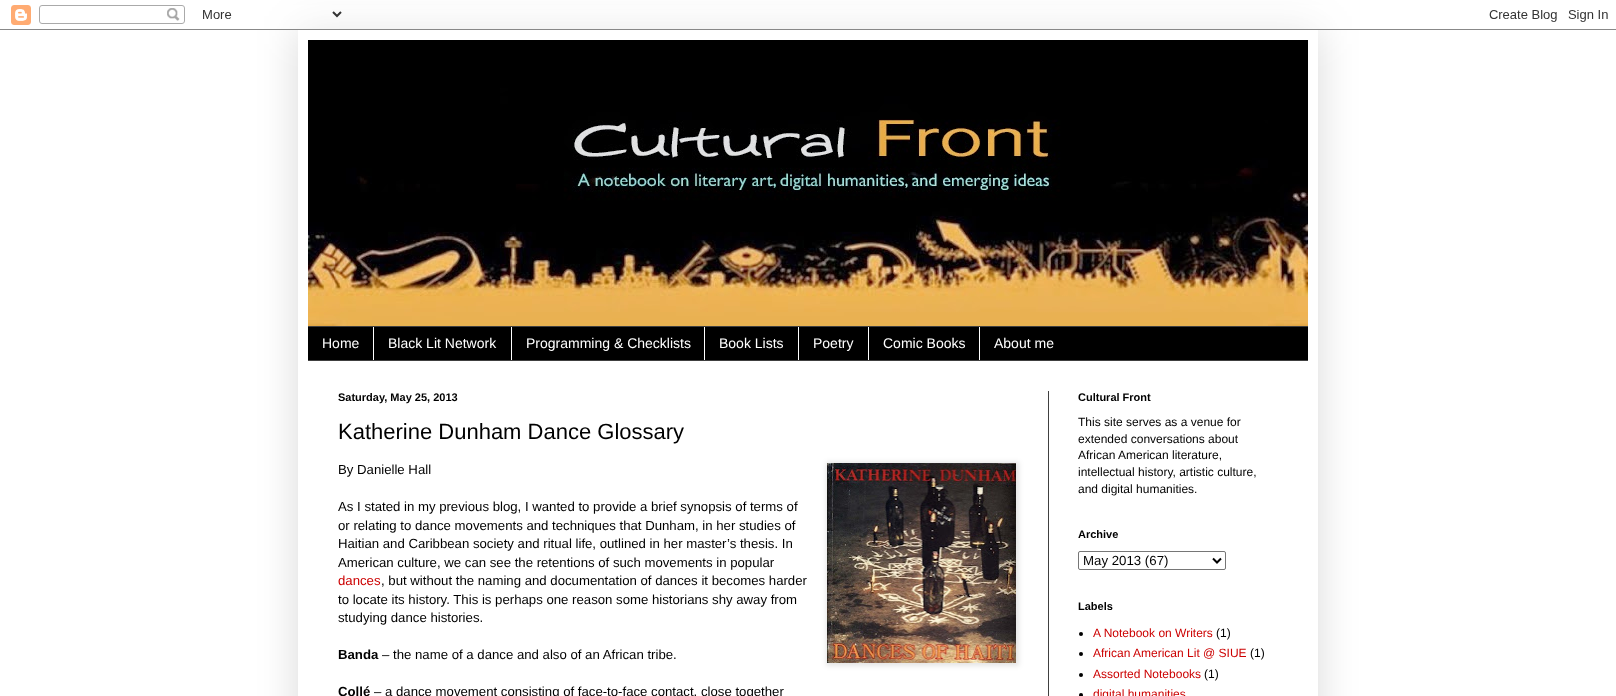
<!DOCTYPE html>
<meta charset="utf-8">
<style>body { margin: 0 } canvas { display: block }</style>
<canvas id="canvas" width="1616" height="696"></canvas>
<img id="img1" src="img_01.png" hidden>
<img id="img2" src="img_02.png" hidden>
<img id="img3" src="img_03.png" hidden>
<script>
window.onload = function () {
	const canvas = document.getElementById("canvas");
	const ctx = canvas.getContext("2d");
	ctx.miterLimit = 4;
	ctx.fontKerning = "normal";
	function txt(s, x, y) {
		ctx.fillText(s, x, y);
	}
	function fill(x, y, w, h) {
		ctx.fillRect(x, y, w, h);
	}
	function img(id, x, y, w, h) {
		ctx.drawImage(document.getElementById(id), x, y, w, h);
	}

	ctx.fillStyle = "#FFFFFF";
	fill(0, 0, 1616, 696);
	ctx.save();
	ctx.beginPath();
	ctx.moveTo(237, 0);
	ctx.lineTo(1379, 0);
	ctx.lineTo(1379, 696);
	ctx.lineTo(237, 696);
	ctx.closePath();
	ctx.moveTo(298, 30);
	ctx.lineTo(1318, 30);
	ctx.lineTo(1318, 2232);
	ctx.lineTo(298, 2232);
	ctx.closePath();
	ctx.clip("evenodd");
	ctx.fillStyle = "rgba(0, 0, 0, 0.15)";
	ctx.filter = "blur(20px)";
	ctx.beginPath();
	ctx.rect(298, 30, 1020, 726);
	ctx.fill();
	ctx.filter = "none";
	ctx.restore();
	img("img1", 0, 5, 1616, 25);
	img("img2", 308, 40, 1000, 286);
	ctx.fillStyle = "#000000";
	fill(308, 327, 1000, 33);
	ctx.fillStyle = "#404040";
	fill(308, 326, 1000, 1);
	fill(308, 360, 1000, 1);
	ctx.fillStyle = "#FFFFFF";
	fill(373, 327, 1, 33);
	fill(511, 327, 1, 33);
	fill(704, 327, 1, 33);
	fill(798, 327, 1, 33);
	fill(868, 327, 1, 33);
	fill(979, 327, 1, 33);
	ctx.fillStyle = "#404040";
	fill(1048, 391, 1, 305);
	ctx.fillStyle = "rgba(0, 0, 0, 0.1)";
	ctx.filter = "blur(2.5px)";
	ctx.beginPath();
	ctx.rect(826, 462, 193, 204);
	ctx.fill();
	ctx.filter = "none";
	img("img3", 827, 463, 189, 200);
	ctx.beginPath();
	ctx.roundRect(1078.5, 551.5, 147, 18, 1.5);
	ctx.strokeStyle = "#767676";
	ctx.stroke();
	ctx.beginPath();
	ctx.moveTo(1213, 558.5);
	ctx.lineTo(1217, 562.5);
	ctx.lineTo(1221, 558.5);
	ctx.strokeStyle = "#000000";
	ctx.lineWidth = 2;
	ctx.stroke();
	ctx.fillStyle = "#000000";
	ctx.beginPath();
	ctx.arc(1081, 634, 2, 0, Math.PI * 2);
	ctx.fill();
	ctx.beginPath();
	ctx.arc(1081, 654, 2, 0, Math.PI * 2);
	ctx.fill();
	ctx.beginPath();
	ctx.arc(1081, 675, 2, 0, Math.PI * 2);
	ctx.fill();
	ctx.beginPath();
	ctx.arc(1081, 695, 2, 0, Math.PI * 2);
	ctx.fill();
	ctx.font = "14px Liberation Sans";
	ctx.fillStyle = "#FFFFFF";
	txt("Home", 322, 348);
	txt("Black Lit Network", 388, 348);
	txt("Programming & Checklists", 526, 348);
	txt("Book Lists", 719, 348);
	txt("Poetry", 813, 348);
	txt("Comic Books", 883, 348);
	txt("About me", 994, 348);
	ctx.font = "bold 11px Liberation Sans";
	ctx.fillStyle = "#000000";
	txt("Saturday, May 25, 2013", 338, 401);
	ctx.font = "22px Liberation Sans";
	txt("Katherine Dunham Dance Glossary", 338, 439);
	ctx.font = "13.2px Liberation Sans";
	txt("By Danielle Hall", 338, 474);
	txt("As I stated in my previous blog, I wanted to provide a brief synopsis of terms of", 338, 511);
	txt("or relating to dance movements and techniques that Dunham, in her studies of", 338, 530);
	txt("Haitian and Caribbean society and ritual life, outlined in her master’s thesis. In", 338, 548);
	txt("American culture, we can see the retentions of such movements in popular", 338, 567);
	ctx.fillStyle = "#CC0000";
	txt("dances", 338, 585);
	ctx.fillStyle = "#000000";
	txt(", but without the naming and documentation of dances it becomes harder", 381, 585);
	txt("to locate its history. This is perhaps one reason some historians shy away from", 338, 604);
	txt("studying dance histories.", 338, 622);
	ctx.font = "bold 13.2px Liberation Sans";
	txt("Banda", 338, 659);
	ctx.font = "13.2px Liberation Sans";
	txt("– the name of a dance and also of an African tribe.", 382, 659);
	ctx.font = "bold 13.2px Liberation Sans";
	txt("Collé", 338, 696);
	ctx.font = "13.2px Liberation Sans";
	txt("– a dance movement consisting of face-to-face contact, close together", 374, 696);
	ctx.font = "bold 11px Liberation Sans";
	txt("Cultural Front", 1078, 401);
	ctx.font = "12px Liberation Sans";
	txt("This site serves as a venue for", 1078, 426);
	txt("extended conversations about", 1078, 443);
	txt("African", 1078, 459);
	txt("American literature,", 1118, 459);
	txt("intellectual history, artistic culture,", 1078, 476);
	txt("and digital humanities.", 1078, 493);
	ctx.font = "bold 11px Liberation Sans";
	txt("Archive", 1078, 538);
	ctx.font = "13.25px Liberation Sans";
	txt("May 2013 (67)", 1083, 565);
	ctx.font = "bold 11px Liberation Sans";
	txt("Labels", 1078, 610);
	ctx.font = "12px Liberation Sans";
	ctx.fillStyle = "#CC0000";
	txt("A Notebook on Writers", 1093, 637);
	ctx.fillStyle = "#000000";
	txt("(1)", 1216, 637);
	ctx.fillStyle = "#CC0000";
	txt("African American Lit @ SIUE", 1093, 657);
	ctx.fillStyle = "#000000";
	txt("(1)", 1250, 657);
	ctx.fillStyle = "#CC0000";
	txt("Assorted Notebooks", 1093, 678);
	ctx.fillStyle = "#000000";
	txt("(1)", 1204, 678);
	ctx.fillStyle = "#CC0000";
	txt("digital humanities", 1093, 698);
};
</script>
